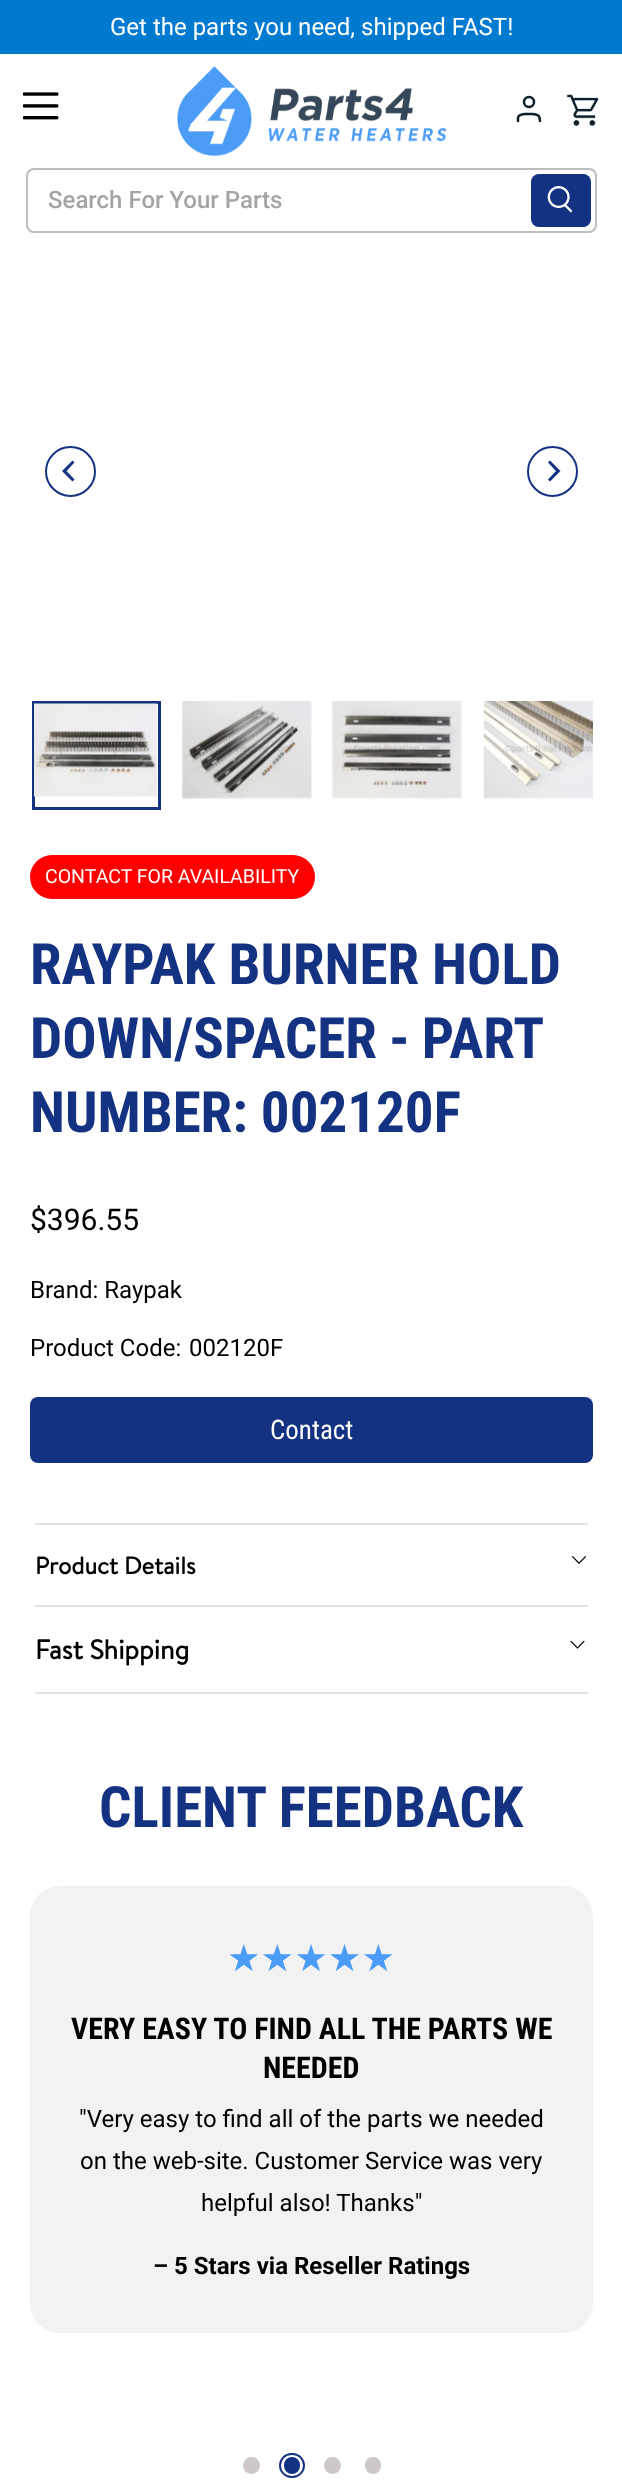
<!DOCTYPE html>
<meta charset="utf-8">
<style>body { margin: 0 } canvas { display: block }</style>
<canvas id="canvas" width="622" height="2482"></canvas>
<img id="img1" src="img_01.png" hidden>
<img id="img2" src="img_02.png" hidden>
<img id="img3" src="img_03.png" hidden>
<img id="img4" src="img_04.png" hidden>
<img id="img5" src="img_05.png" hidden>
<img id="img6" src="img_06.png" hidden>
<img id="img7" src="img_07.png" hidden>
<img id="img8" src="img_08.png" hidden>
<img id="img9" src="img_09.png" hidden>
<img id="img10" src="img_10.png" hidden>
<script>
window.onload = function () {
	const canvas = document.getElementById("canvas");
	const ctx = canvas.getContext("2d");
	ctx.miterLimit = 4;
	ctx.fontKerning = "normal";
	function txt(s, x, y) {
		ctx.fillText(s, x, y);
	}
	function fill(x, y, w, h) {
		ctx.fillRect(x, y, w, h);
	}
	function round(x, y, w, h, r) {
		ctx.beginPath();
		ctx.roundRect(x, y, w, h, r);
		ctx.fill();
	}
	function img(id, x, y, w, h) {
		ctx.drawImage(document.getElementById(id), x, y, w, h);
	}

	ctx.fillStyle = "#FFFFFF";
	fill(0, 0, 622, 2482);
	ctx.fillStyle = "#007ACE";
	fill(0, 0, 622, 54);
	img("img1", 23, 92, 36, 28);
	img("img2", 177, 66, 270, 90);
	ctx.beginPath();
	ctx.moveTo(540, 121);
	ctx.lineTo(539.5, 117.5);
	ctx.bezierCurveTo(538.5, 113, 532.5, 114, 529, 114);
	ctx.bezierCurveTo(525.5, 114, 519, 113, 518, 117.5);
	ctx.lineTo(518, 121);
	ctx.strokeStyle = "#0D212C";
	ctx.lineWidth = 2.5;
	ctx.lineCap = "round";
	ctx.lineJoin = "round";
	ctx.stroke();
	ctx.beginPath();
	ctx.arc(529, 102, 5, 0, Math.PI * 2);
	ctx.stroke();
	img("img3", 566, 94, 33, 33);
	ctx.beginPath();
	ctx.roundRect(27, 169, 569, 63, 7);
	ctx.strokeStyle = "#BEBEBE";
	ctx.lineWidth = 2;
	ctx.lineJoin = "miter";
	ctx.stroke();
	ctx.fillStyle = "#143282";
	round(533, 174, 58, 53, 8);
	round(531, 174, 59, 53, 8);
	img("img4", 547, 186, 26, 27);
	ctx.beginPath();
	ctx.arc(70.5, 471.5, 24.5, 0, Math.PI * 2);
	ctx.strokeStyle = "#143282";
	ctx.stroke();
	ctx.beginPath();
	ctx.moveTo(62, 471);
	ctx.lineTo(72.5, 481.5);
	ctx.lineTo(74.5, 479.5);
	ctx.lineTo(66.5, 471);
	ctx.lineTo(74.5, 462.5);
	ctx.lineTo(72.5, 460.5);
	ctx.closePath();
	ctx.fill();
	ctx.beginPath();
	ctx.arc(552.5, 471.5, 24.5, 0, Math.PI * 2);
	ctx.stroke();
	ctx.beginPath();
	ctx.moveTo(560.5, 471);
	ctx.lineTo(550, 460.5);
	ctx.lineTo(548, 462.5);
	ctx.lineTo(556, 471);
	ctx.lineTo(548, 479.5);
	ctx.lineTo(550, 481.5);
	ctx.closePath();
	ctx.fill();
	ctx.lineWidth = 3;
	ctx.strokeRect(33.5, 702.5, 126, 106);
	img("img5", 34, 703, 123, 94);
	img("img6", 181, 701, 131, 98);
	img("img7", 332, 701, 130, 98);
	img("img8", 483, 701, 110, 98);
	ctx.fillStyle = "#FF0001";
	round(30, 855, 285, 44, 22);
	ctx.fillStyle = "#143282";
	round(30, 1397, 563, 66, 8);
	ctx.fillStyle = "#E3E3E3";
	fill(35, 1523, 553, 2);
	fill(35, 1605, 553, 2);
	img("img9", 572, 1556, 15, 8);
	fill(35, 1692, 553, 2);
	img("img10", 570, 1640, 15, 9);
	ctx.fillStyle = "#F2F2F2";
	round(30, 1886, 563, 447, 30);
	ctx.fillStyle = "#CDC7C7";
	ctx.beginPath();
	ctx.arc(251.5, 2465.5, 8.5, 0, Math.PI * 2);
	ctx.fill();
	ctx.fillStyle = "#143282";
	round(284, 2457, 16, 17, 8);
	ctx.beginPath();
	ctx.roundRect(280, 2454, 24, 23, 11.5);
	ctx.lineWidth = 2;
	ctx.stroke();
	ctx.fillStyle = "#CDC7C7";
	ctx.beginPath();
	ctx.arc(332.5, 2465.5, 8.5, 0, Math.PI * 2);
	ctx.fill();
	round(365, 2457, 16, 17, 8);
	ctx.font = "24px Roboto";
	ctx.fillStyle = "#FFFFFF";
	txt("Get the parts you need, shipped FAST!", 110, 35);
	ctx.font = "500 24px Roboto";
	ctx.fillStyle = "#A4A4A4";
	txt("Search For Your Parts", 48, 208);
	ctx.font = "19.5px Roboto";
	ctx.fillStyle = "#FFFFFF";
	txt("CONTACT FOR AVAILABILITY", 45, 883);
	ctx.font = "bold 57px Roboto Condensed";
	ctx.fillStyle = "#143282";
	txt("RAYPAK BURNER HOLD", 30, 984);
	ctx.wordSpacing = "-1px";
	txt("DOWN/SPACER - PART", 30, 1058);
	ctx.wordSpacing = "0px";
	txt("NUMBER: 002120F", 30, 1132);
	ctx.font = "30px Roboto";
	ctx.fillStyle = "#000000";
	txt("$396.55", 30, 1230);
	ctx.font = "24px Roboto";
	txt("Brand: Raypak", 30, 1298);
	txt("Product Code:", 30, 1356);
	txt("002120F", 189, 1356);
	ctx.font = "27px Roboto Condensed";
	ctx.fillStyle = "#FFFFFF";
	txt("Contact", 270, 1439);
	ctx.font = "bold 24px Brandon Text";
	ctx.fillStyle = "#000000";
	txt("Product Details", 35, 1574);
	ctx.font = "bold 27px Brandon Text";
	txt("Fast Shipping", 35, 1659);
	ctx.font = "bold 57px Roboto Condensed";
	ctx.fillStyle = "#143282";
	txt("CLIENT FEEDBACK", 99, 1827);
	ctx.font = "37.5px DejaVu Sans";
	ctx.fillStyle = "#4B9CF7";
	txt("★★★★★", 227, 1971);
	ctx.font = "bold 30px Roboto Condensed";
	ctx.fillStyle = "#000000";
	txt("VERY EASY TO FIND ALL THE PARTS WE", 71, 2039);
	txt("NEEDED", 263, 2078);
	ctx.font = "24px Roboto";
	txt("\"Very easy to find all of the parts we needed", 79, 2127);
	txt("on the web-site. Customer Service was very", 80, 2169);
	txt("helpful also! Thanks\"", 201, 2211);
	ctx.font = "bold 24px Roboto";
	txt("– 5 Stars via Reseller Ratings", 153, 2274);
};
</script>
